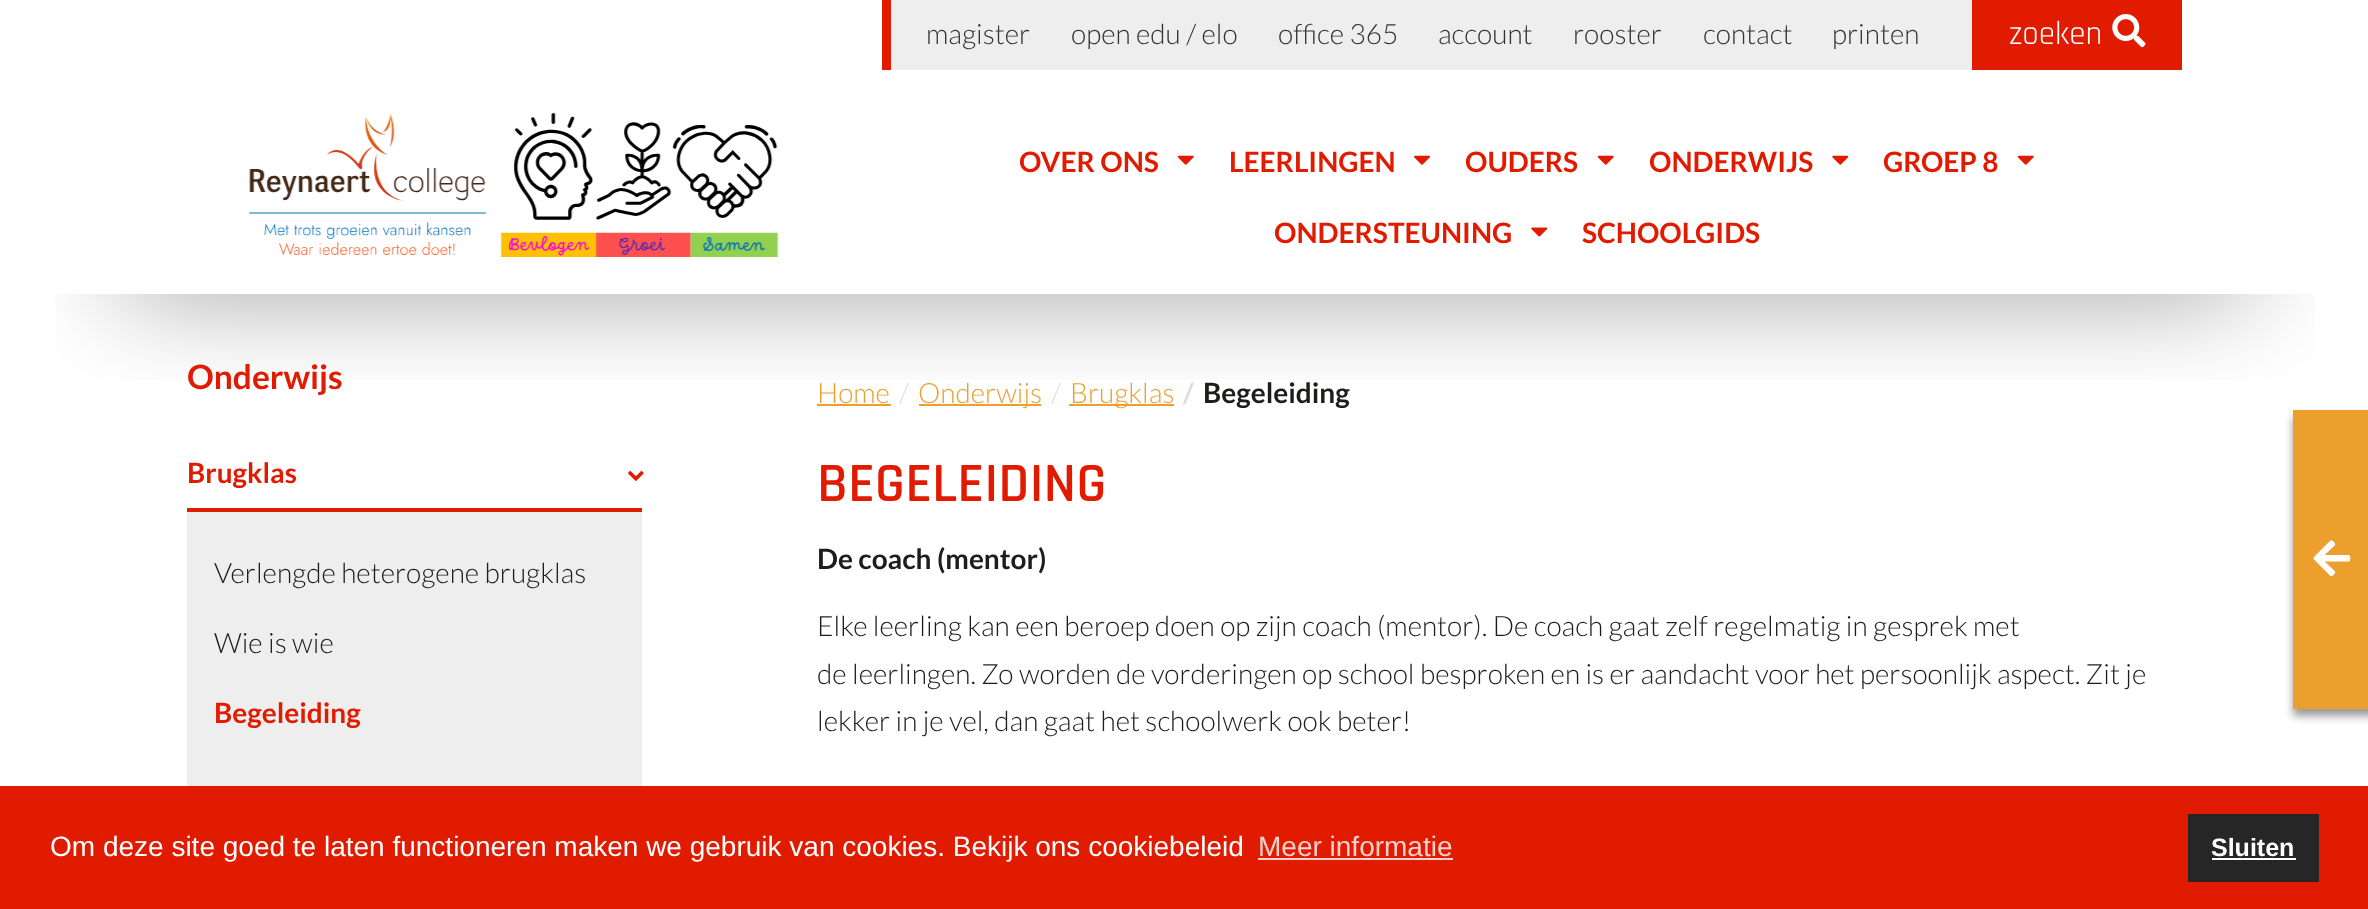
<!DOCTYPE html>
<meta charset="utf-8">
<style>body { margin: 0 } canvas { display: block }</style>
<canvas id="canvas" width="2368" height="909"></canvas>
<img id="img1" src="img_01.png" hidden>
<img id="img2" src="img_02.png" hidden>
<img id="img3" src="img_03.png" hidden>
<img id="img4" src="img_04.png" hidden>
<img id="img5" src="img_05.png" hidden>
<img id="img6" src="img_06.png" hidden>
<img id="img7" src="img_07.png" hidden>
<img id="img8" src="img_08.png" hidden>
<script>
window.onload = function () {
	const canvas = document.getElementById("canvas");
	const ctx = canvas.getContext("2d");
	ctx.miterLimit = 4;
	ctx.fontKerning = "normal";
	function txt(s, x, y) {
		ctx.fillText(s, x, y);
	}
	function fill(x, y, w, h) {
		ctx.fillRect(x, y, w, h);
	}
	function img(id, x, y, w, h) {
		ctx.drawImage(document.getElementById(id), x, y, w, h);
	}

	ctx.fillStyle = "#FFFFFF";
	fill(0, 0, 2368, 909);
	ctx.fillStyle = "#ED9F2D";
	fill(817, 404, 74, 2);
	fill(919, 404, 122, 2);
	fill(1069, 404, 105, 2);
	ctx.fillStyle = "rgba(0, 0, 0, 0.4)";
	ctx.filter = "blur(4.5px)";
	ctx.beginPath();
	ctx.rect(2293, 417, 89, 299);
	ctx.fill();
	ctx.filter = "none";
	ctx.fillStyle = "#ED9F2D";
	fill(2293, 410, 75, 299);
	ctx.save();
	ctx.beginPath();
	ctx.rect(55, 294, 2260, 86);
	ctx.clip();
	ctx.fillStyle = "rgba(0, 0, 0, 0.69)";
	ctx.filter = "blur(57px)";
	ctx.beginPath();
	ctx.rect(123, 226, 2124, 49);
	ctx.fill();
	ctx.filter = "none";
	ctx.restore();
	ctx.fillStyle = "#EEEEEE";
	fill(891, 0, 1081, 70);
	ctx.fillStyle = "#E01B00";
	fill(882, 0, 9, 70);
	fill(1972, 0, 210, 70);
	img("img1", 2112, 14, 34, 34);
	img("img2", 249, 113, 530, 144);
	img("img3", 1177, 155, 17, 10);
	img("img4", 1414, 155, 16, 10);
	img("img3", 1597, 155, 17, 10);
	img("img5", 1832, 155, 17, 10);
	img("img3", 2017, 155, 17, 10);
	img("img6", 1531, 227, 17, 10);
	img("img7", 628, 470, 16, 11);
	ctx.fillStyle = "#EEEEEE";
	fill(187, 512, 455, 274);
	ctx.fillStyle = "#E01B00";
	fill(187, 508, 455, 4);
	img("img8", 2313, 540, 38, 37);
	fill(0, 786, 2368, 123);
	ctx.fillStyle = "#F9D1CC";
	fill(1258, 858, 195, 2);
	ctx.fillStyle = "#262626";
	fill(2188, 814, 131, 68);
	ctx.fillStyle = "#FFFFFF";
	fill(2212, 858, 84, 2);
	ctx.font = "300 28px Lato";
	ctx.fillStyle = "#333333";
	txt("magister", 926, 44);
	txt("open edu / elo", 1071, 44);
	txt("office 365", 1278, 44);
	txt("account", 1438, 44);
	txt("rooster", 1573, 44);
	txt("contact", 1703, 44);
	txt("printen", 1832, 44);
	ctx.font = "33px Rajdhani";
	ctx.fillStyle = "#FFFFFF";
	txt("zoeken", 2009, 44);
	ctx.font = "bold 28px Lato";
	ctx.fillStyle = "#E01B00";
	txt("OVER ONS", 1019, 172);
	txt("LEERLINGEN", 1229, 172);
	txt("OUDERS", 1465, 172);
	txt("ONDERWIJS", 1649, 172);
	txt("GROEP 8", 1883, 172);
	txt("ONDERSTEUNING", 1274, 243);
	txt("SCHOOLGIDS", 1582, 243);
	ctx.font = "bold 33.5px Lato";
	txt("Onderwijs", 187, 389);
	ctx.font = "bold 28px Lato";
	txt("Brugklas", 187, 483);
	ctx.font = "300 28px Lato";
	ctx.fillStyle = "#1D1D1B";
	txt("Verlengde heterogene brugklas", 214, 583);
	txt("Wie is wie", 214, 653);
	ctx.font = "bold 28px Lato";
	ctx.fillStyle = "#E01B00";
	txt("Begeleiding", 214, 723);
	ctx.font = "300 28px Lato";
	ctx.fillStyle = "#ED9F2D";
	txt("Home", 817, 403);
	ctx.fillStyle = "#DDDDDD";
	txt("/", 899, 403);
	ctx.fillStyle = "#ED9F2D";
	txt("Onderwijs", 918, 403);
	ctx.fillStyle = "#DDDDDD";
	txt("/", 1051, 403);
	ctx.fillStyle = "#ED9F2D";
	txt("Brugklas", 1070, 403);
	ctx.font = "bold 28px Lato";
	ctx.fillStyle = "#DDDDDD";
	txt("/", 1183, 403);
	ctx.fillStyle = "#1D1D1B";
	txt("Begeleiding", 1203, 403);
	ctx.font = "600 56px Rajdhani";
	ctx.fillStyle = "#E01B00";
	txt("BEGELEIDING", 817, 501);
	ctx.font = "bold 28px Lato";
	ctx.fillStyle = "#1D1D1B";
	txt("De coach (mentor)", 817, 569);
	ctx.font = "300 28px Lato";
	txt("Elke leerling kan een beroep doen op zijn coach (mentor). De coach gaat zelf regelmatig in gesprek met", 817, 636);
	txt("de leerlingen. Zo worden de vorderingen op school besproken en is er aandacht voor het persoonlijk aspect. Zit je", 817, 684);
	txt("lekker in je vel, dan gaat het schoolwerk ook beter!", 817, 731);
	ctx.font = "28px Liberation Sans";
	ctx.fillStyle = "#FFFFFF";
	txt("Om deze site goed te laten functioneren maken we gebruik van cookies. Bekijk ons cookiebeleid", 50, 856);
	ctx.fillStyle = "#F9D1CC";
	txt("Meer informatie", 1258, 856);
	ctx.font = "bold 25px Liberation Sans";
	ctx.fillStyle = "#FFFFFF";
	txt("Sluiten", 2211, 856);
};
</script>
